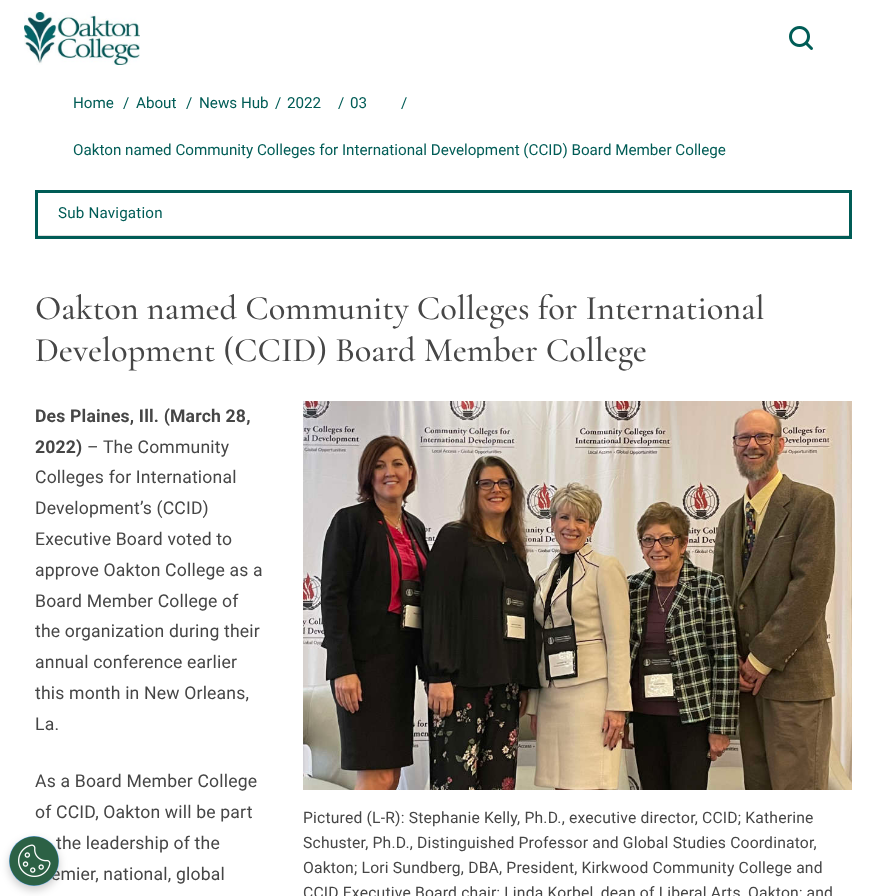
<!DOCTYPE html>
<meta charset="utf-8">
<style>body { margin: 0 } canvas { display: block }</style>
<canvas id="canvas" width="887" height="896"></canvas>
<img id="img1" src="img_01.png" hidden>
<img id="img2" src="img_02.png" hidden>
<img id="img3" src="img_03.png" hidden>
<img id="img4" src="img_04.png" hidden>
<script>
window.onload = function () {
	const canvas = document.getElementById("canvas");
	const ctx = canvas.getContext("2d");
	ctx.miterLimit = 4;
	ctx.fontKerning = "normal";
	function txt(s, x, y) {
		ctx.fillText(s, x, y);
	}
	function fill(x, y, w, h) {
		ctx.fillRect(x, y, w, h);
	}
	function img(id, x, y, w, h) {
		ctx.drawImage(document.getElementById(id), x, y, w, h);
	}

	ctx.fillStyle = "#FFFFFF";
	fill(0, 0, 887, 896);
	img("img1", 24, 12, 116, 53);
	img("img2", 789, 26, 24, 24);
	ctx.strokeStyle = "#005C56";
	ctx.lineWidth = 3;
	ctx.strokeRect(36.5, 191.5, 814, 46);
	ctx.fillStyle = "#DDDDDD";
	fill(38, 235, 811, 1);
	img("img3", 303, 401, 549, 389);
	ctx.fillStyle = "rgba(0, 0, 0, 0.2)";
	ctx.filter = "blur(4px)";
	ctx.beginPath();
	ctx.roundRect(9, 840, 50, 50, 25);
	ctx.fill();
	ctx.filter = "none";
	ctx.font = "15.2px Roboto";
	ctx.fillStyle = "#005C56";
	txt("Home", 73, 108);
	txt("/", 123, 108);
	txt("About", 136, 108);
	txt("/", 186, 108);
	txt("News Hub", 199, 108);
	txt("/", 275, 108);
	txt("2022", 287, 108);
	txt("/", 338, 108);
	txt("03", 350, 108);
	txt("/", 401, 108);
	txt("Oakton named Community Colleges for International Development (CCID) Board Member College", 73, 155);
	ctx.letterSpacing = "0.18px";
	txt("Sub Navigation", 58, 218);
	ctx.letterSpacing = "0px";
	ctx.font = "500 34.4px Cormorant Garamond";
	ctx.fillStyle = "#464646";
	txt("Oakton named Community Colleges for International", 35, 319);
	txt("Development (CCID) Board Member College", 35, 361);
	ctx.letterSpacing = "0.18px";
	ctx.font = "bold 17.6px Roboto";
	txt("Des Plaines, Ill. (March 28,", 35, 422);
	txt("2022)", 35, 453);
	ctx.font = "17.6px Roboto";
	txt("– The Community", 87, 453);
	txt("Colleges for International", 35, 483);
	txt("Development’s (CCID)", 35, 514);
	txt("Executive Board voted to", 35, 545);
	txt("approve Oakton College as a", 35, 576);
	txt("Board Member College of", 35, 607);
	txt("the organization during their", 35, 637);
	txt("annual conference earlier", 35, 668);
	txt("this month in New Orleans,", 35, 699);
	txt("La.", 35, 730);
	txt("As a Board Member College", 35, 787);
	txt("of CCID, Oakton will be part", 35, 818);
	txt("the leadership of the", 56, 849);
	txt("emier, national, global", 51, 880);
	ctx.font = "15.7px Roboto";
	txt("Pictured (L-R): Stephanie Kelly, Ph.D., executive director, CCID; Katherine", 303, 823);
	txt("Schuster, Ph.D., Distinguished Professor and Global Studies Coordinator,", 303, 848);
	txt("Oakton; Lori Sundberg, DBA, President, Kirkwood Community College and", 303, 873);
	txt("CCID Executive Board chair; Linda Korbel, dean of Liberal Arts, Oakton; and", 303, 898);
	ctx.fillStyle = "#6AAAE4";
	ctx.beginPath();
	ctx.arc(34, 861, 25, 0, Math.PI * 2);
	ctx.fill();
	img("img4", 9, 836, 50, 50);
};
</script>
